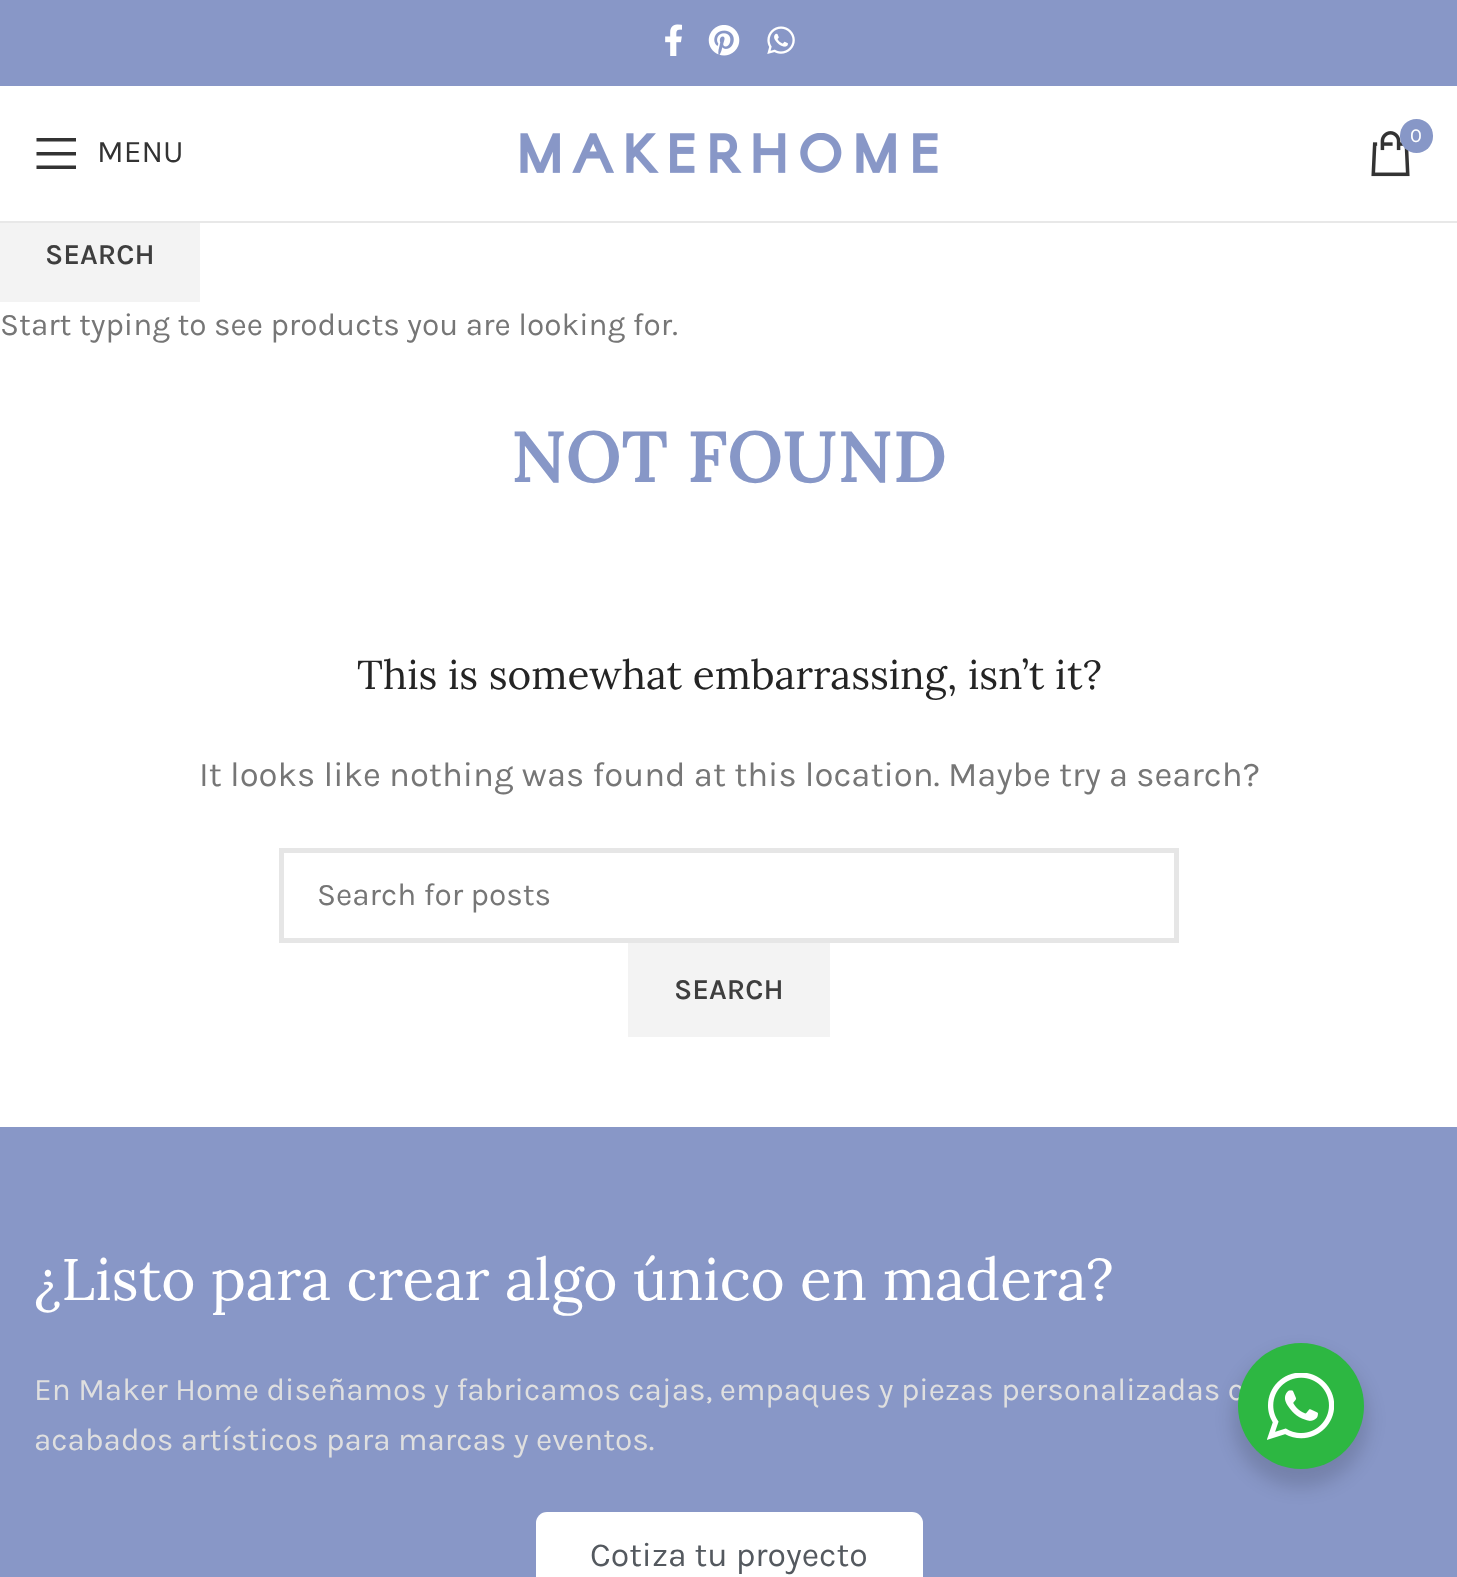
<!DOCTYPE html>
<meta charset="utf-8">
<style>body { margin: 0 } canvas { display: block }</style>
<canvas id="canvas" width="1457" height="1577"></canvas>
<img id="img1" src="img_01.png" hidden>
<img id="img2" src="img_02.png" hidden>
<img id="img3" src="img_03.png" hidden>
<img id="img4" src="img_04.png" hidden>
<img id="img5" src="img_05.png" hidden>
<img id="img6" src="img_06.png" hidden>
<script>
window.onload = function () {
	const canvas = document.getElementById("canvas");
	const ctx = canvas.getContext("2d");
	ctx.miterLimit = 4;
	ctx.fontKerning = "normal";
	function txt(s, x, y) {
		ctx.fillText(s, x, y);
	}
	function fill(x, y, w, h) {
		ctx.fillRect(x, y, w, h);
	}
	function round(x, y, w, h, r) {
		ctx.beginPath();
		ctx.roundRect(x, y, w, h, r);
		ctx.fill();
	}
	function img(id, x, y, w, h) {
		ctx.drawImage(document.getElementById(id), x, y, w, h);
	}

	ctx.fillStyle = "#FFFFFF";
	fill(0, 0, 1457, 1577);
	ctx.fillStyle = "#8897C7";
	fill(0, 0, 1457, 86);
	img("img1", 665, 24, 17, 32);
	img("img2", 708, 25, 32, 31);
	img("img3", 767, 26, 28, 28);
	ctx.fillStyle = "#E8E8E8";
	fill(0, 221, 1457, 2);
	ctx.fillStyle = "#333333";
	ctx.beginPath();
	ctx.moveTo(36.5, 141.5);
	ctx.lineTo(76, 141.5);
	ctx.lineTo(76, 138);
	ctx.lineTo(36.5, 138);
	ctx.closePath();
	ctx.moveTo(36.5, 155.5);
	ctx.lineTo(76, 155.5);
	ctx.lineTo(76, 152);
	ctx.lineTo(36.5, 152);
	ctx.closePath();
	ctx.moveTo(36.5, 169);
	ctx.lineTo(76, 169);
	ctx.lineTo(76, 165.5);
	ctx.lineTo(36.5, 165.5);
	ctx.closePath();
	ctx.fill();
	img("img4", 520, 133, 418, 40);
	img("img5", 1371, 131, 39, 46);
	ctx.fillStyle = "#8797C7";
	round(1400, 119, 33, 34, 16.5);
	ctx.strokeStyle = "#E6E6E6";
	ctx.lineWidth = 5;
	ctx.strokeRect(281.5, 850.5, 895, 90);
	ctx.fillStyle = "#F3F3F3";
	fill(628, 943, 202, 94);
	ctx.fillStyle = "#8897C7";
	fill(0, 1127, 1457, 450);
	ctx.fillStyle = "#FFFFFF";
	round(536, 1512, 387, 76, 11);
	ctx.fillStyle = "#F3F3F3";
	fill(0, 223, 200, 79);
	ctx.fillStyle = "rgba(0, 0, 0, 0.14)";
	ctx.filter = "blur(9px)";
	ctx.beginPath();
	ctx.roundRect(1233, 1352, 135, 135, 67.5);
	ctx.fill();
	ctx.filter = "none";
	ctx.font = "31.5px Karla";
	ctx.fillStyle = "#333333";
	txt("MENU", 97, 162);
	ctx.font = "20px Karla";
	ctx.fillStyle = "#FFFFFF";
	txt("0", 1410, 142);
	ctx.font = "600 72px Lora";
	ctx.fillStyle = "#8797C7";
	txt("NOT FOUND", 511, 482);
	ctx.font = "40.5px Lora";
	ctx.fillStyle = "#242424";
	txt("This is somewhat embarrassing, isn’t it?", 357, 689);
	ctx.font = "34.65px Karla";
	ctx.fillStyle = "#767676";
	txt("It looks like nothing was found at this location. Maybe try a search?", 199, 786);
	ctx.font = "31.5px Karla";
	txt("Search for posts", 317, 905);
	ctx.font = "600 29px Karla";
	ctx.fillStyle = "#3E3E3E";
	txt("SEARCH", 674, 999);
	ctx.font = "58.5px Lora";
	ctx.fillStyle = "#FFFFFF";
	txt("¿Listo para crear algo único en madera?", 34, 1300);
	ctx.font = "31.5px Karla";
	ctx.fillStyle = "#DFDFDF";
	txt("En Maker Home diseñamos y fabricamos cajas, empaques y piezas personalizadas c", 34, 1400);
	txt("acabados artísticos para marcas y eventos.", 34, 1450);
	ctx.font = "33.75px Karla";
	ctx.fillStyle = "#54595F";
	txt("Cotiza tu proyecto", 590, 1566);
	ctx.font = "600 29px Karla";
	ctx.fillStyle = "#3E3E3E";
	txt("SEARCH", 45, 264);
	ctx.font = "31.5px Karla";
	ctx.fillStyle = "#767676";
	txt("Start typing to see products you are looking for.", 0, 335);
	ctx.fillStyle = "#2DB742";
	ctx.beginPath();
	ctx.arc(1301, 1406, 63, 0, Math.PI * 2);
	ctx.fill();
	img("img6", 1267, 1373, 67, 67);
};
</script>
